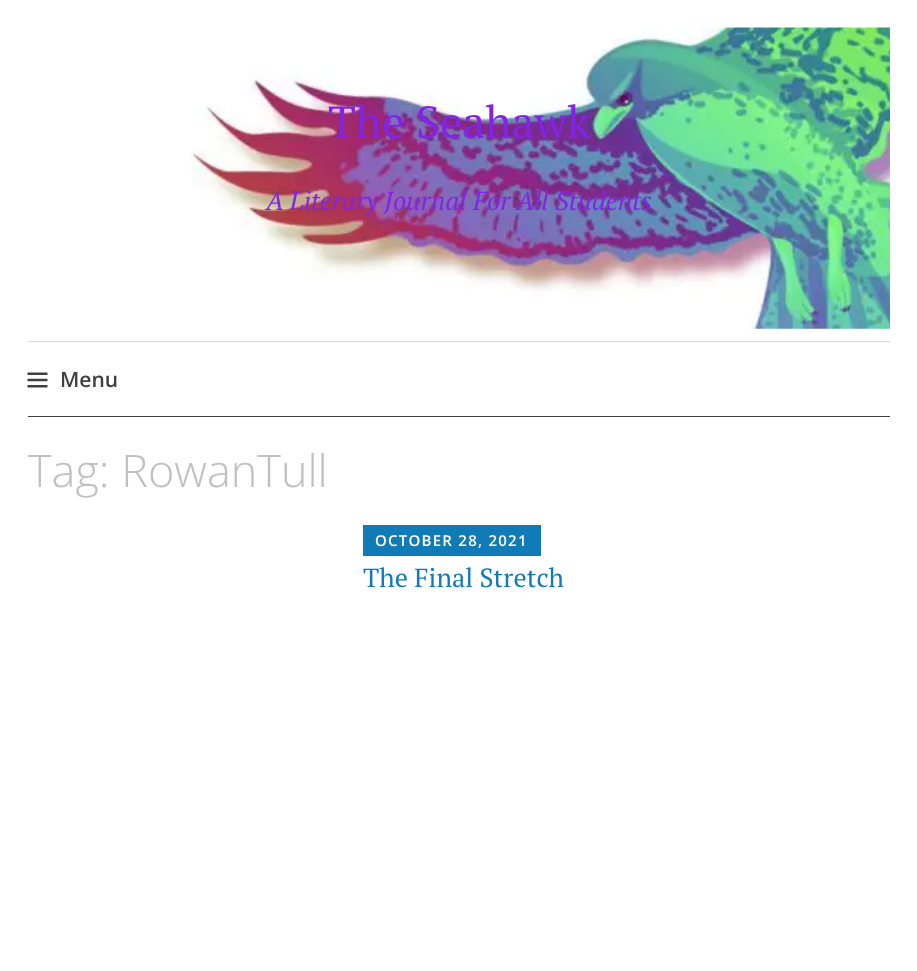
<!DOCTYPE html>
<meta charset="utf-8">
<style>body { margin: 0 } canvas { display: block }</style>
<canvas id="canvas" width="917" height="971"></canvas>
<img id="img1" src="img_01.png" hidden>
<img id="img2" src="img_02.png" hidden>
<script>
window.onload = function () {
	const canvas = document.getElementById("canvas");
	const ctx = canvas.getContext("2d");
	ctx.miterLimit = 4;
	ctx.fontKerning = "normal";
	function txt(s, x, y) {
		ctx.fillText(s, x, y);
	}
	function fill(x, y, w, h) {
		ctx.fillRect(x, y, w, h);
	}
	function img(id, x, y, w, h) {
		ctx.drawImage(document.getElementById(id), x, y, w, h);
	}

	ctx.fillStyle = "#FFFFFF";
	fill(0, 0, 917, 971);
	img("img1", 191, 27, 699, 302);
	ctx.fillStyle = "#D9D9D9";
	fill(28, 341, 862, 1);
	ctx.fillStyle = "#404040";
	fill(28, 416, 862, 1);
	img("img2", 27, 372, 21, 16);
	ctx.fillStyle = "#117BB8";
	fill(363, 525, 178, 31);
	ctx.font = "45px PT Serif";
	ctx.fillStyle = "#8224E3";
	txt("The Seahawk", 328, 138);
	ctx.font = "italic 26.25px PT Serif";
	txt("A Literary Journal For All Students", 266, 210);
	ctx.font = "600 21px Open Sans";
	ctx.fillStyle = "#404040";
	txt("Menu", 60, 387);
	ctx.font = "300 45px Open Sans";
	ctx.fillStyle = "#C0C0C0";
	txt("Tag: RowanTull", 28, 487);
	ctx.letterSpacing = "1.25px";
	ctx.font = "600 15px Open Sans";
	ctx.fillStyle = "#FFFFFF";
	txt("OCTOBER 28, 2021", 375, 546);
	ctx.letterSpacing = "0px";
	ctx.font = "26.25px PT Serif";
	ctx.fillStyle = "#117BB8";
	txt("The Final Stretch", 363, 587);
};
</script>
